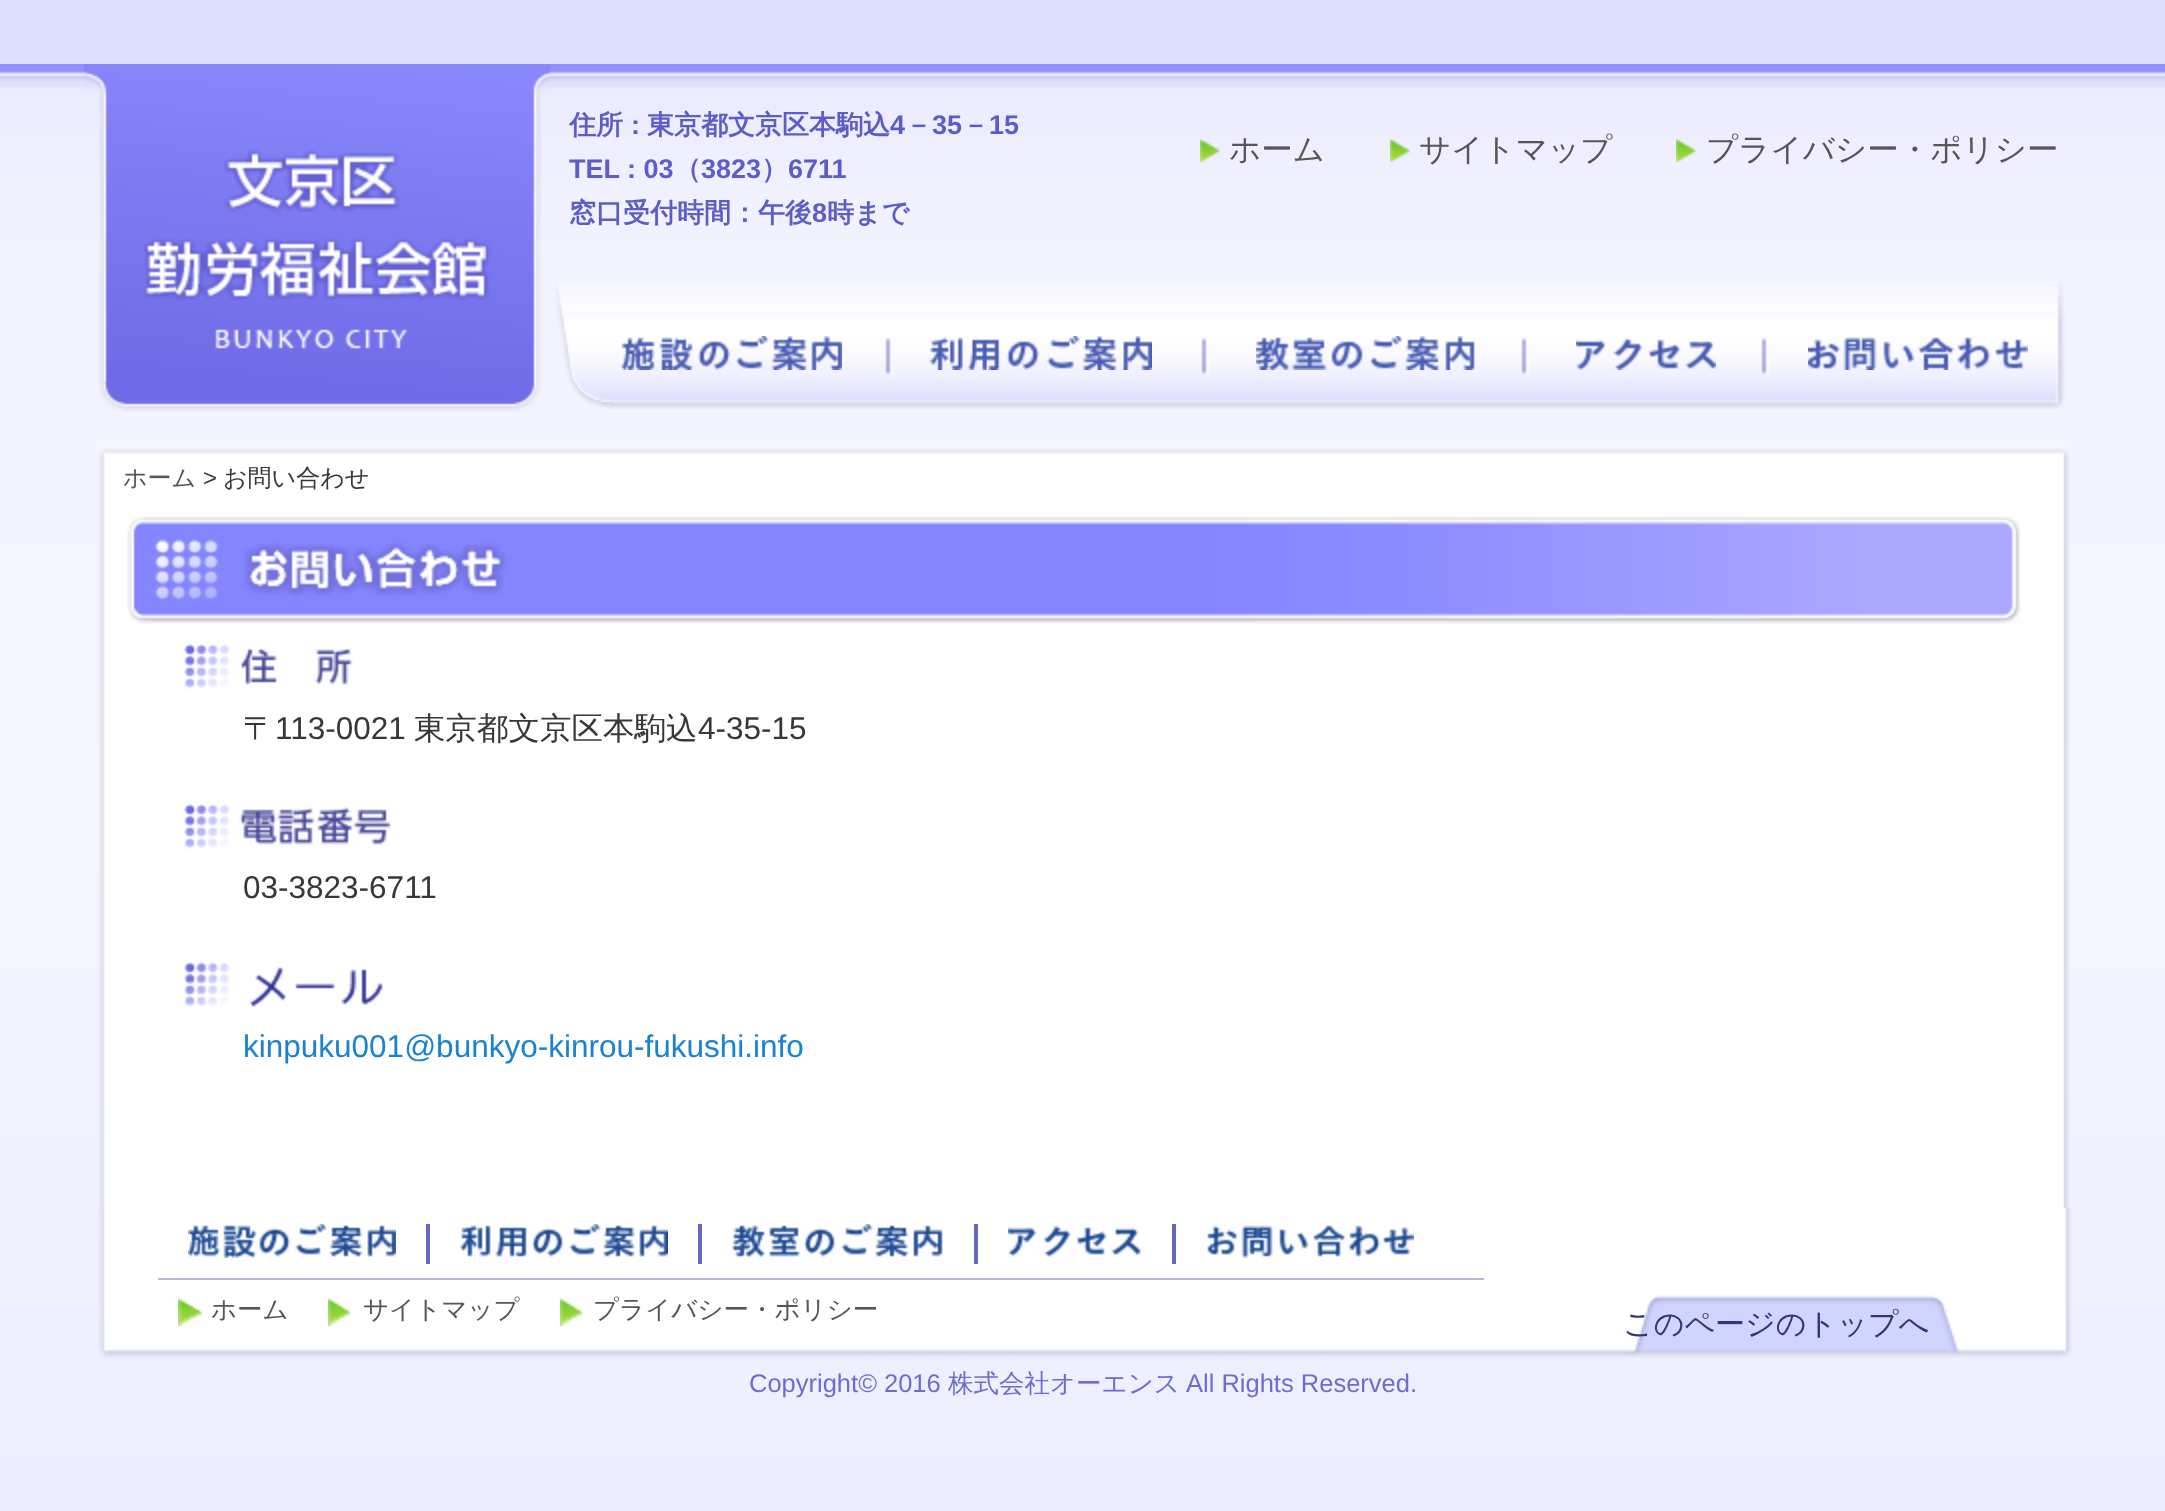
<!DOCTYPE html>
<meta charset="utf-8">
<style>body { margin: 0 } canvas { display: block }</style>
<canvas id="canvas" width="2165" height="1511"></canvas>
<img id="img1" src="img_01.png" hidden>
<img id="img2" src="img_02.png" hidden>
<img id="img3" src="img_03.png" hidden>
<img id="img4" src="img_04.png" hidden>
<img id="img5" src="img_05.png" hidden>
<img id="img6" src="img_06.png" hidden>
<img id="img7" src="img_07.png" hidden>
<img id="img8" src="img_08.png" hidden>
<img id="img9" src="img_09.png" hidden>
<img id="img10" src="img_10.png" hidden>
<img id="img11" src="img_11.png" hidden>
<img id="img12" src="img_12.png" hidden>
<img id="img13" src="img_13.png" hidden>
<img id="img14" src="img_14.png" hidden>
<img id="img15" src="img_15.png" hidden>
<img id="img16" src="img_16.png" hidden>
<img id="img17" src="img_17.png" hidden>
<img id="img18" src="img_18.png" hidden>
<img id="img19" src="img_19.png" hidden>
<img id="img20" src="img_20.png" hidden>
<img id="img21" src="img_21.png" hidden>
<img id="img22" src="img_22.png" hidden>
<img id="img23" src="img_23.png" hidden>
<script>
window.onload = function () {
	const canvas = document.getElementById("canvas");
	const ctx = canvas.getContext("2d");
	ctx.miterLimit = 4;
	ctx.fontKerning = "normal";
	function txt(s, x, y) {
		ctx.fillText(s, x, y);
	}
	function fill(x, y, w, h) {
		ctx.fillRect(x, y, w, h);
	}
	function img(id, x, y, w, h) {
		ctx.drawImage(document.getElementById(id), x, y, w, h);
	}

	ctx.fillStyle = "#DEDEFF";
	fill(0, 0, 2165, 1511);
	img("img1", 0, 64, 2165, 1447);
	img("img2", 84, 64, 466, 348);
	img("img3", 1200, 139, 20, 23);
	img("img3", 1390, 139, 20, 23);
	img("img3", 1676, 139, 20, 23);
	img("img4", 555, 282, 1510, 127);
	img("img5", 621, 336, 221, 34);
	img("img6", 930, 336, 222, 34);
	img("img7", 1256, 336, 219, 34);
	img("img8", 1576, 337, 140, 33);
	img("img9", 1808, 337, 220, 33);
	img("img10", 98, 457, 1972, 751);
	img("img11", 98, 444, 1972, 13);
	img("img12", 127, 516, 1894, 108);
	img("img13", 184, 644, 169, 45);
	img("img14", 184, 804, 207, 45);
	img("img15", 184, 962, 199, 45);
	img("img16", 98, 1208, 1974, 150);
	ctx.fillStyle = "#B4BAD3";
	fill(158, 1278, 1326, 2);
	ctx.fillStyle = "#6666C4";
	fill(426, 1224, 4, 40);
	img("img17", 188, 1224, 208, 34);
	fill(698, 1224, 4, 40);
	img("img18", 460, 1224, 208, 34);
	fill(974, 1224, 4, 40);
	img("img19", 732, 1224, 211, 34);
	fill(1172, 1224, 4, 40);
	img("img20", 1008, 1225, 134, 32);
	img("img21", 1207, 1225, 207, 33);
	img("img22", 178, 1297, 26, 29);
	img("img23", 328, 1297, 24, 29);
	img("img23", 560, 1297, 24, 29);
	ctx.font = "bold 27px WenQuanYi Zen Hei";
	ctx.fillStyle = "#5D5DC9";
	txt("住所", 569, 134);
	ctx.font = "bold 27px Liberation Sans";
	txt(":", 631, 134);
	ctx.font = "bold 27px WenQuanYi Zen Hei";
	txt("東京都文京区本駒込", 647, 134);
	ctx.font = "bold 27px Liberation Sans";
	txt("4", 890, 134);
	ctx.font = "bold 27px WenQuanYi Zen Hei";
	txt("－", 905, 134);
	ctx.font = "bold 27px Liberation Sans";
	txt("35", 932, 134);
	ctx.font = "bold 27px WenQuanYi Zen Hei";
	txt("－", 962, 134);
	ctx.font = "bold 27px Liberation Sans";
	txt("15", 989, 134);
	txt("TEL : 03", 569, 178);
	ctx.font = "bold 27px WenQuanYi Zen Hei";
	txt("（", 674, 178);
	ctx.font = "bold 27px Liberation Sans";
	txt("3823", 701, 178);
	ctx.font = "bold 27px WenQuanYi Zen Hei";
	txt("）", 761, 178);
	ctx.font = "bold 27px Liberation Sans";
	txt("6711", 788, 178);
	ctx.font = "bold 27px WenQuanYi Zen Hei";
	txt("窓口受付時間：午後", 569, 222);
	ctx.font = "bold 27px Liberation Sans";
	txt("8", 812, 222);
	ctx.font = "bold 27px WenQuanYi Zen Hei";
	txt("時まで", 827, 222);
	ctx.font = "500 31.5px WenQuanYi Zen Hei";
	ctx.fillStyle = "#565656";
	txt("ホーム", 1229, 160);
	txt("サイトマップ", 1419, 160);
	txt("プライバシー・ポリシー", 1706, 160);
	ctx.font = "500 24px WenQuanYi Zen Hei";
	txt("ホーム", 123, 486);
	ctx.font = "24px Liberation Sans";
	ctx.fillStyle = "#373737";
	txt(">", 203, 486);
	ctx.font = "500 24px WenQuanYi Zen Hei";
	txt("お問い合わせ", 223, 486);
	ctx.font = "500 31.5px WenQuanYi Zen Hei";
	txt("〒", 243, 739);
	ctx.font = "31.5px Liberation Sans";
	txt("113-0021", 275, 739);
	ctx.font = "500 31.5px WenQuanYi Zen Hei";
	txt("東京都文京区本駒込", 414, 739);
	ctx.font = "31.5px Liberation Sans";
	txt("4-35-15", 698, 739);
	txt("03-3823-6711", 243, 898);
	ctx.fillStyle = "#1982D1";
	txt("kinpuku001@bunkyo-kinrou-fukushi.info", 243, 1057);
	ctx.font = "500 25.5px WenQuanYi Zen Hei";
	ctx.fillStyle = "#565656";
	txt("ホーム", 211, 1318);
	txt("サイトマップ", 363, 1318);
	txt("プライバシー・ポリシー", 593, 1318);
	ctx.font = "500 30px WenQuanYi Zen Hei";
	ctx.fillStyle = "#353577";
	txt("このページのトップへ", 1623, 1334);
	ctx.font = "25.5px Liberation Sans";
	ctx.fillStyle = "#6C6CD3";
	txt("Copyright© 2016", 749, 1392);
	ctx.font = "500 25.5px WenQuanYi Zen Hei";
	txt("株式会社オーエンス", 948, 1392);
	ctx.font = "25.5px Liberation Sans";
	txt("All Rights Reserved.", 1186, 1392);
};
</script>
